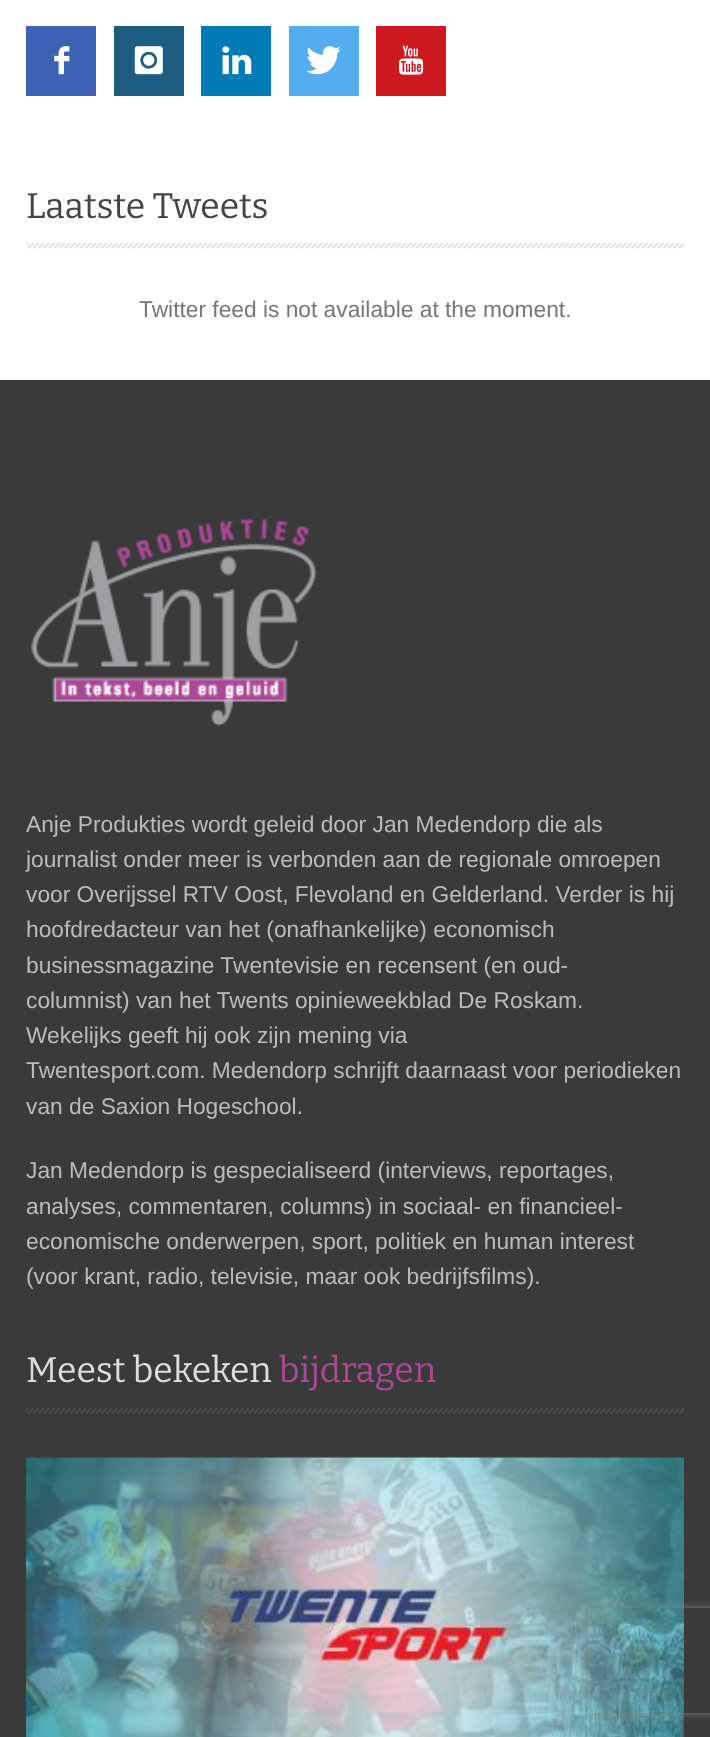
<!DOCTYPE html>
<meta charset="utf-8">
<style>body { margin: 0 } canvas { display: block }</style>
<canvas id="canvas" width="710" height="1737"></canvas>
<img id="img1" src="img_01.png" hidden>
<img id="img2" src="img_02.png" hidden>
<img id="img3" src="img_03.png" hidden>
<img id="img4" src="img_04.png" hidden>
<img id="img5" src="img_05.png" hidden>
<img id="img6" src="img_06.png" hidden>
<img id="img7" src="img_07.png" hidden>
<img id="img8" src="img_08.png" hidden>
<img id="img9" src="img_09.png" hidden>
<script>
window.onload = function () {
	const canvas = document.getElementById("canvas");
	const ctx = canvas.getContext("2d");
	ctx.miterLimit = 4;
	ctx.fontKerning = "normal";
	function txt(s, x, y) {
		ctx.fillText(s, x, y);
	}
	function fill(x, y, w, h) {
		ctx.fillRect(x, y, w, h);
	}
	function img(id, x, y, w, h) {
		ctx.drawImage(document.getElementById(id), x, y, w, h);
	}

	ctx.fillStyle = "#FFFFFF";
	fill(0, 0, 710, 1737);
	ctx.fillStyle = "#3D62B3";
	fill(26, 26, 70, 70);
	img("img1", 54, 46, 16, 29);
	ctx.fillStyle = "#1E5D81";
	fill(114, 26, 70, 70);
	img("img2", 134, 46, 29, 29);
	ctx.fillStyle = "#007BB6";
	fill(201, 26, 70, 70);
	img("img3", 222, 46, 30, 29);
	ctx.fillStyle = "#55ACEE";
	fill(289, 26, 70, 70);
	img("img4", 306, 46, 35, 29);
	ctx.fillStyle = "#CC181E";
	fill(376, 26, 70, 70);
	img("img5", 399, 45, 25, 30);
	img("img6", 26, 243, 659, 6);
	ctx.fillStyle = "#3A3A3A";
	fill(0, 380, 710, 1357);
	img("img7", 31, 519, 286, 208);
	img("img8", 26, 1408, 658, 6);
	img("img9", 26, 1456, 658, 281);
	ctx.save();
	ctx.beginPath();
	ctx.moveTo(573, 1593);
	ctx.lineTo(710, 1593);
	ctx.lineTo(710, 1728);
	ctx.lineTo(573, 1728);
	ctx.closePath();
	ctx.moveTo(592, 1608);
	ctx.lineTo(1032, 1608);
	ctx.bezierCurveTo(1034, 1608, 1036, 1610, 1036, 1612);
	ctx.lineTo(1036, 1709);
	ctx.bezierCurveTo(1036, 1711, 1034, 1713, 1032, 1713);
	ctx.lineTo(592, 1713);
	ctx.bezierCurveTo(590, 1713, 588, 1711, 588, 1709);
	ctx.lineTo(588, 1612);
	ctx.bezierCurveTo(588, 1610, 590, 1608, 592, 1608);
	ctx.closePath();
	ctx.clip("evenodd");
	ctx.fillStyle = "#808080";
	ctx.filter = "blur(4.5px)";
	ctx.beginPath();
	ctx.roundRect(588, 1608, 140, 105, 4);
	ctx.fill();
	ctx.filter = "none";
	ctx.restore();
	ctx.font = "35.5px Bitter";
	ctx.fillStyle = "#444444";
	txt("Laatste Tweets", 26, 218);
	ctx.font = "22.75px Liberation Sans";
	ctx.fillStyle = "#777777";
	txt("Twitter feed is not available at the moment.", 139, 317);
	ctx.fillStyle = "#BBBBBB";
	txt("Anje Produkties wordt geleid door Jan Medendorp die als", 26, 832);
	txt("journalist onder meer is verbonden aan de regionale omroepen", 26, 867);
	txt("voor Overijssel RTV Oost, Flevoland en Gelderland. Verder is hij", 26, 902);
	txt("hoofdredacteur van het (onafhankelijke) economisch", 26, 937);
	txt("businessmagazine Twentevisie en recensent (en oud-", 26, 973);
	txt("columnist) van het Twents opinieweekblad De Roskam.", 26, 1008);
	txt("Wekelijks geeft hij ook zijn mening via", 26, 1043);
	txt("Twentesport.com. Medendorp schrijft daarnaast voor periodieken", 26, 1078);
	txt("van de Saxion Hogeschool.", 26, 1114);
	txt("Jan Medendorp is gespecialiseerd (interviews, reportages,", 26, 1178);
	txt("analyses, commentaren, columns) in sociaal- en financieel-", 26, 1214);
	txt("economische onderwerpen, sport, politiek en human interest", 26, 1249);
	txt("(voor krant, radio, televisie, maar ook bedrijfsfilms).", 26, 1284);
	ctx.font = "35.5px Bitter";
	ctx.fillStyle = "#DDDDDD";
	txt("Meest bekeken", 26, 1382);
	ctx.fillStyle = "#AA4896";
	txt("bijdragen", 279, 1382);
};
</script>
